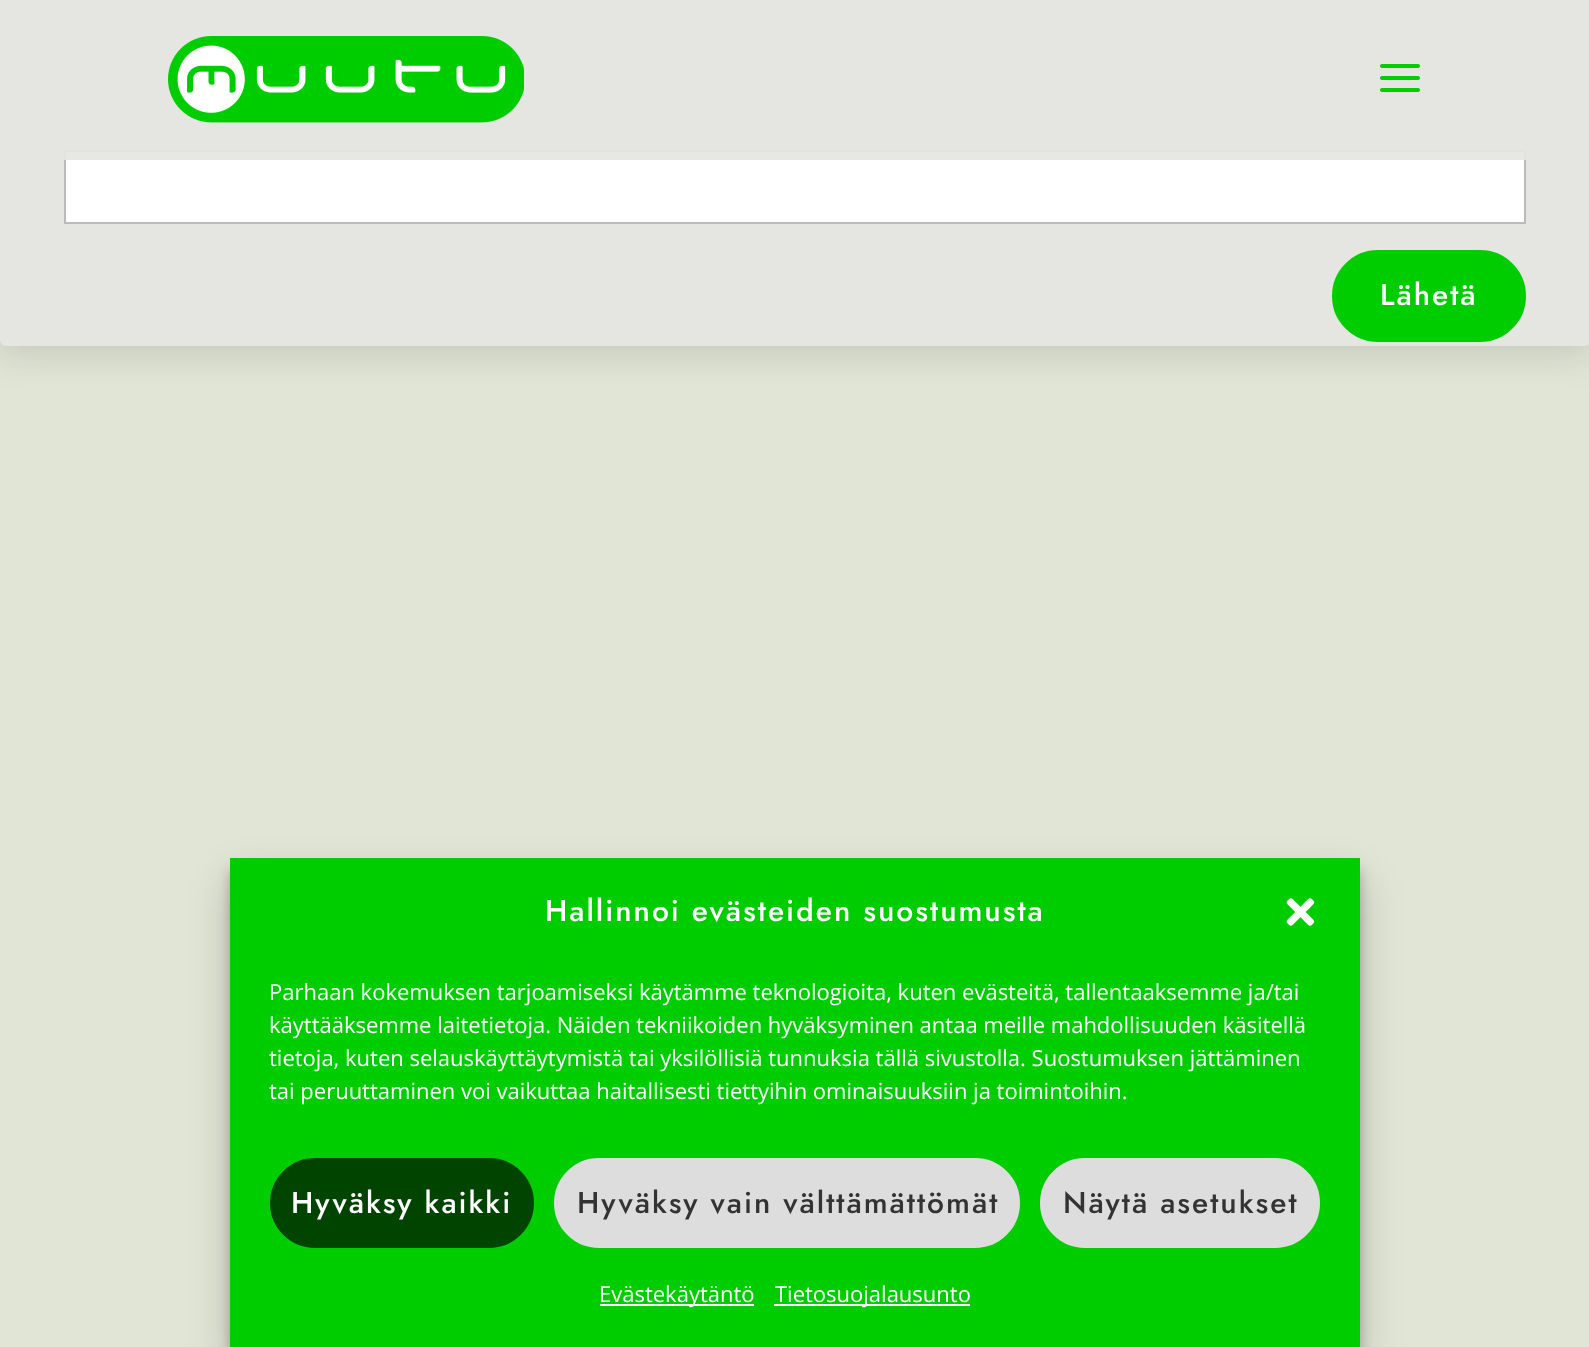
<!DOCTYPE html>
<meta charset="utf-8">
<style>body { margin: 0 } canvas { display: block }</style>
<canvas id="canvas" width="1589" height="1347"></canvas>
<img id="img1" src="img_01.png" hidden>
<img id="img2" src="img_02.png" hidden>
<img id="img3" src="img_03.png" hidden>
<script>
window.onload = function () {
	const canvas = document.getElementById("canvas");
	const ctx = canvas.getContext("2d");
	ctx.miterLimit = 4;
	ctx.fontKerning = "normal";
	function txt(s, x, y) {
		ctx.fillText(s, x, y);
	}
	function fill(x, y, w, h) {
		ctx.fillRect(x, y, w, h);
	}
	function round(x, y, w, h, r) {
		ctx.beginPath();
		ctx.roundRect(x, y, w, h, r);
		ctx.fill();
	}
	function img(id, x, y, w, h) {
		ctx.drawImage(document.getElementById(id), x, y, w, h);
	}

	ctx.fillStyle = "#E1E5D6";
	fill(0, 0, 1589, 1347);
	ctx.fillStyle = "rgba(0, 0, 0, 0.15)";
	ctx.filter = "blur(20px)";
	ctx.beginPath();
	ctx.roundRect(-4, -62, 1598, 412, 10);
	ctx.fill();
	ctx.filter = "none";
	ctx.fillStyle = "#E5E6E1";
	round(0, -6, 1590, 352, 6);
	ctx.fillStyle = "#FFFFFF";
	ctx.beginPath();
	ctx.rect(65, 151, 1460, 72);
	ctx.fill();
	ctx.strokeStyle = "#BBBBBB";
	ctx.lineWidth = 2;
	ctx.stroke();
	ctx.fillStyle = "rgba(229, 230, 225, 0.92)";
	fill(64, 150, 1462, 10);
	img("img1", 168, 36, 356, 87);
	img("img2", 1380, 64, 40, 28);
	ctx.fillStyle = "#00CD00";
	ctx.beginPath();
	ctx.roundRect(1336, 254, 186, 84, 42);
	ctx.fill();
	ctx.strokeStyle = "#00CD00";
	ctx.lineWidth = 8;
	ctx.stroke();
	ctx.fillStyle = "rgba(0, 0, 0, 0.23)";
	ctx.filter = "blur(6px)";
	ctx.beginPath();
	ctx.rect(230, 870, 1130, 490);
	ctx.fill();
	ctx.filter = "none";
	ctx.fillStyle = "rgba(0, 0, 0, 0.19)";
	ctx.filter = "blur(20px)";
	ctx.beginPath();
	ctx.rect(230, 878, 1130, 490);
	ctx.fill();
	ctx.filter = "none";
	ctx.fillStyle = "#00CD00";
	fill(230, 858, 1130, 489);
	img("img3", 1286, 898, 29, 28);
	ctx.fillStyle = "#004400";
	ctx.beginPath();
	ctx.roundRect(271, 1159, 262, 88, 44);
	ctx.fill();
	ctx.strokeStyle = "#004400";
	ctx.lineWidth = 2;
	ctx.stroke();
	ctx.fillStyle = "#DDDDDD";
	ctx.beginPath();
	ctx.roundRect(555, 1159, 464, 88, 44);
	ctx.fill();
	ctx.strokeStyle = "#DDDDDD";
	ctx.stroke();
	ctx.beginPath();
	ctx.roundRect(1041, 1159, 278, 88, 44);
	ctx.fill();
	ctx.stroke();
	ctx.fillStyle = "#FFFFFF";
	fill(600, 1304, 154, 2);
	fill(774, 1304, 196, 2);
	ctx.letterSpacing = "2px";
	ctx.font = "500 30px Jost";
	txt("Lähetä", 1380, 305);
	txt("Hallinnoi evästeiden suostumusta", 545, 921);
	ctx.letterSpacing = "0px";
	ctx.font = "22px Open Sans";
	txt("Parhaan kokemuksen tarjoamiseksi käytämme teknologioita, kuten evästeitä, tallentaaksemme ja/tai", 269, 1000);
	txt("käyttääksemme laitetietoja. Näiden tekniikoiden hyväksyminen antaa meille mahdollisuuden käsitellä", 269, 1033);
	txt("tietoja, kuten selauskäyttäytymistä tai yksilöllisiä tunnuksia tällä sivustolla. Suostumuksen jättäminen", 269, 1066);
	txt("tai peruuttaminen voi vaikuttaa haitallisesti tiettyihin ominaisuuksiin ja toimintoihin.", 269, 1099);
	ctx.letterSpacing = "2px";
	ctx.font = "500 30px Jost";
	txt("Hyväksy kaikki", 291, 1213);
	ctx.fillStyle = "#333333";
	txt("Hyväksy vain välttämättömät", 577, 1213);
	txt("Näytä asetukset", 1063, 1213);
	ctx.letterSpacing = "0px";
	ctx.font = "22px Open Sans";
	ctx.fillStyle = "#FFFFFF";
	txt("Evästekäytäntö", 599, 1302);
	txt("Tietosuojalausunto", 775, 1302);
};
</script>
